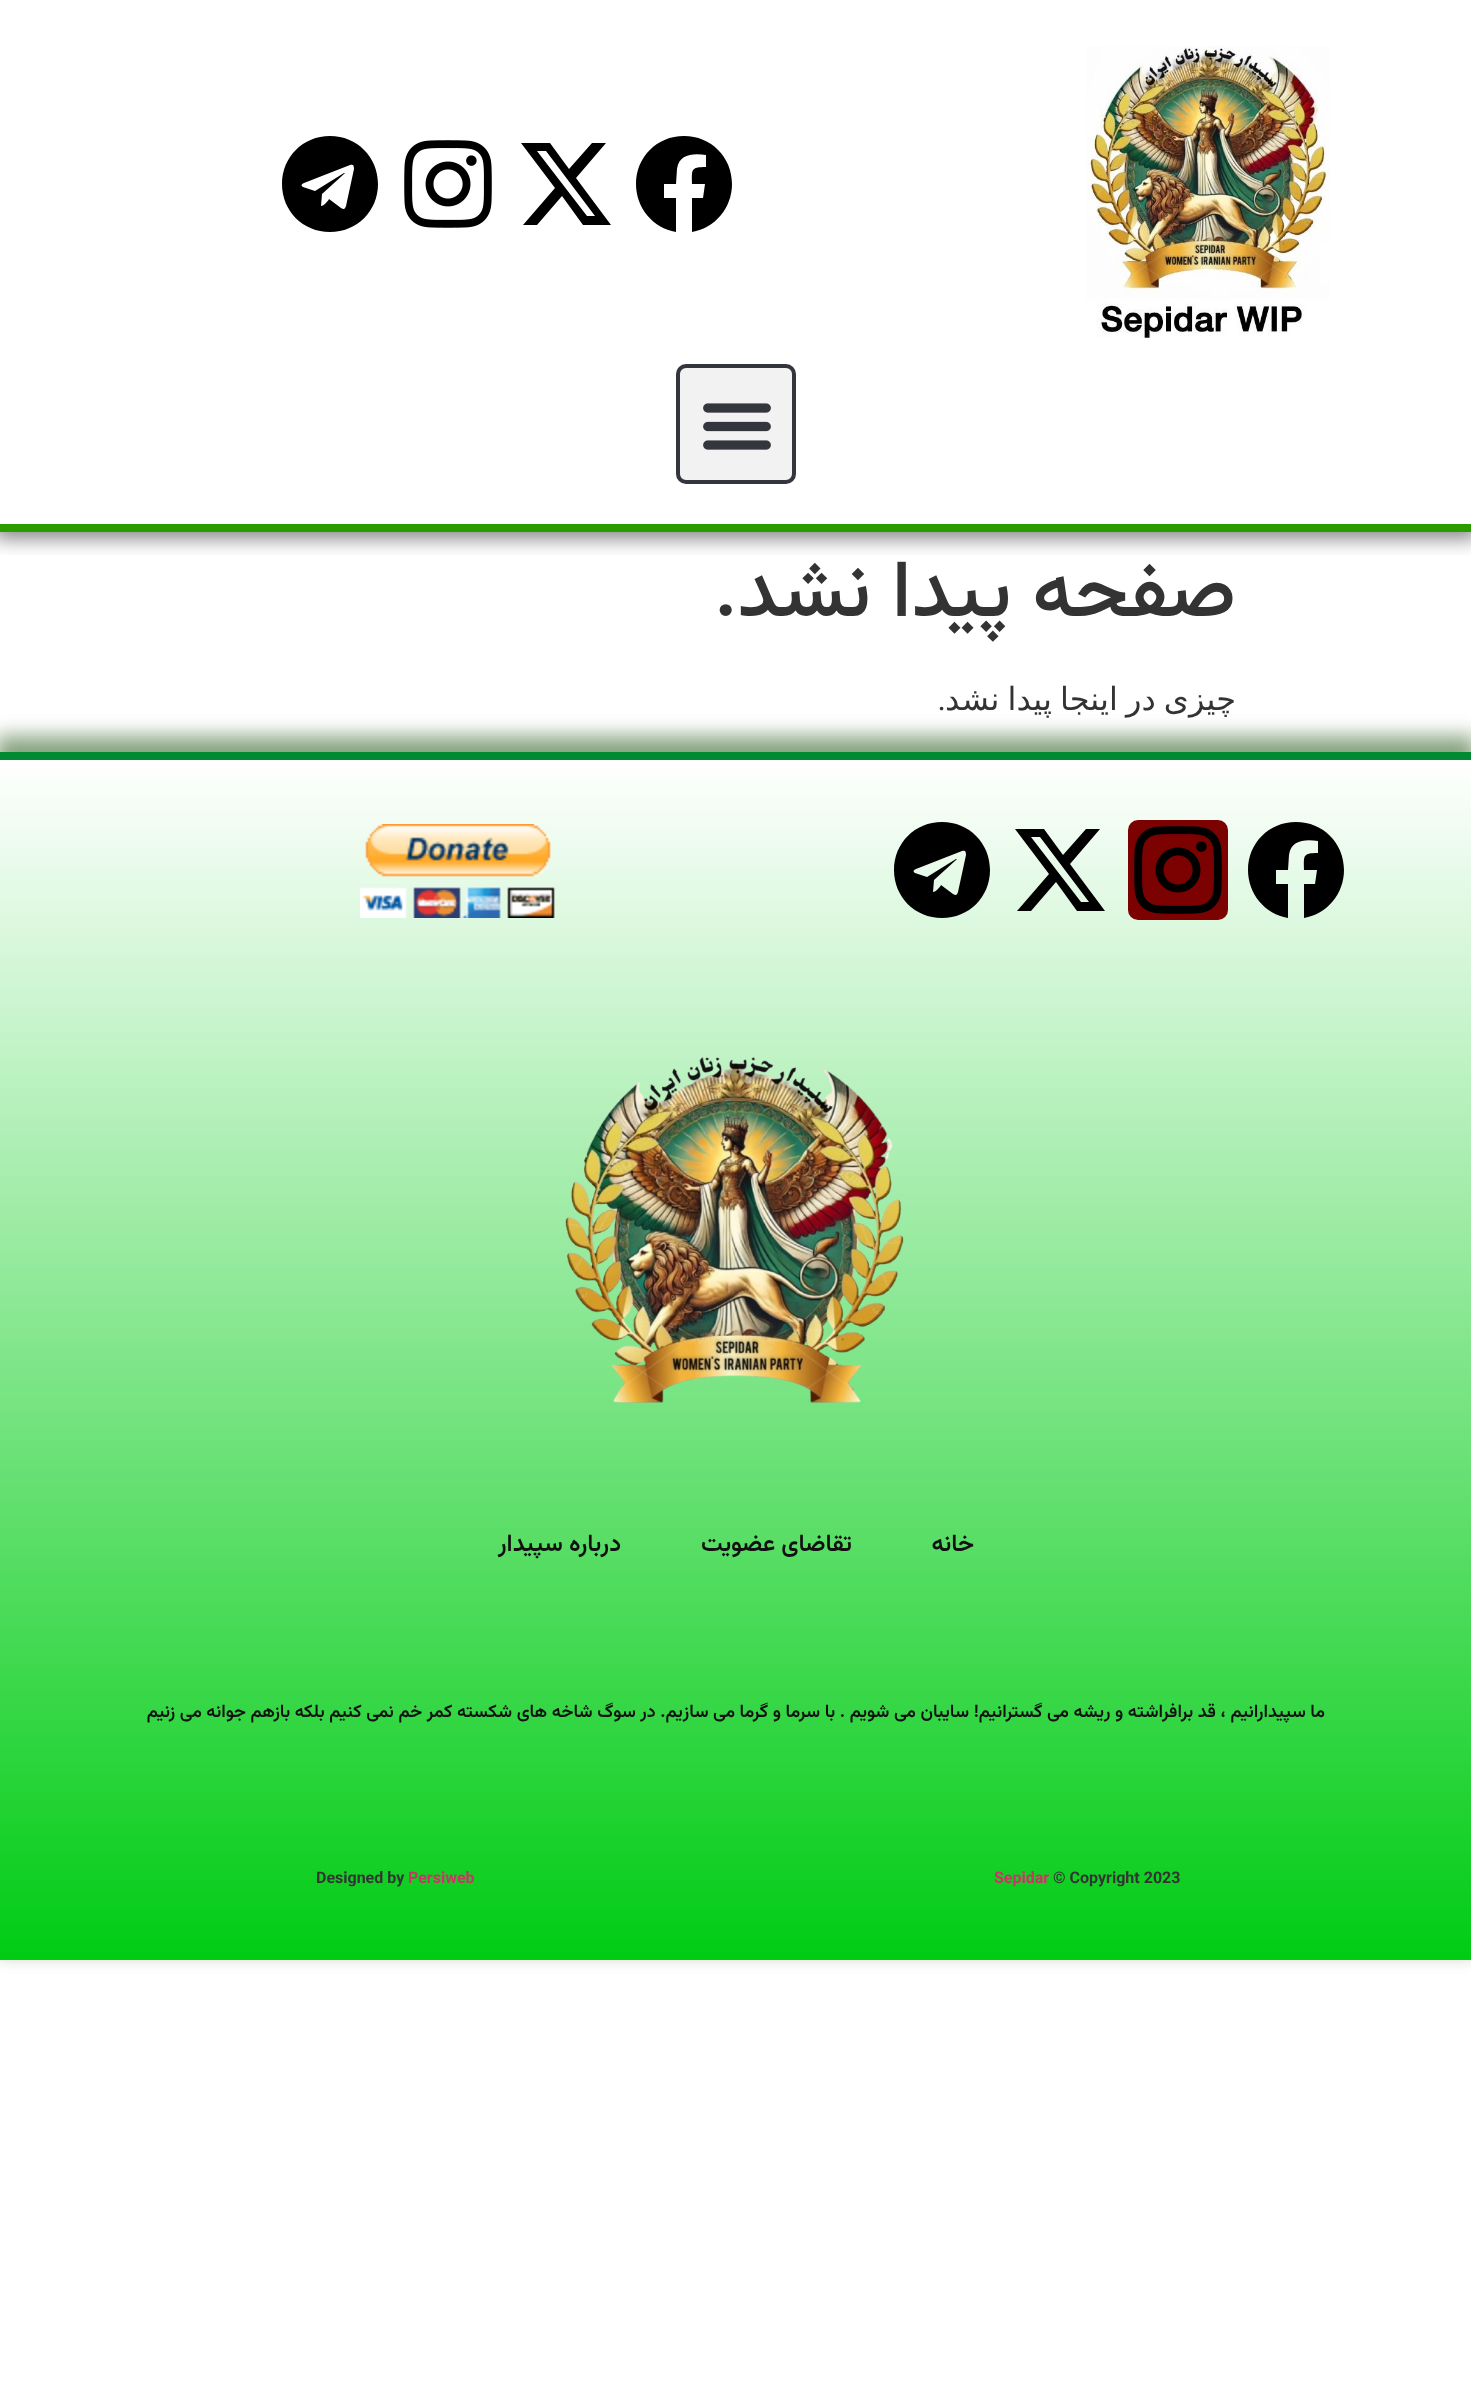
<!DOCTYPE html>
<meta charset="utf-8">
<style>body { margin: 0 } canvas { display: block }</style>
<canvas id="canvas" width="1471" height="2401"></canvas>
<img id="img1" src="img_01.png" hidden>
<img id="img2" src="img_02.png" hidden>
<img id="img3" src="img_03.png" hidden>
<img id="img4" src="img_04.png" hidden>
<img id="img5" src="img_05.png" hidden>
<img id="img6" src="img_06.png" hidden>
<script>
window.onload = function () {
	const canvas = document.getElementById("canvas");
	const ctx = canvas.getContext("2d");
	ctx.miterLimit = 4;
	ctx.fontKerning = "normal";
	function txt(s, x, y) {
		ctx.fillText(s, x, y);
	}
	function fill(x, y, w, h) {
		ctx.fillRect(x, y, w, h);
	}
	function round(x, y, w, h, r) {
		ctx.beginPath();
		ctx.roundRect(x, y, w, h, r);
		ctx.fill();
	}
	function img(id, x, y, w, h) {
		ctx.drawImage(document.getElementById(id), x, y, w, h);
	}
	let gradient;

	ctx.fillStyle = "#FFFFFF";
	fill(0, 0, 1471, 2401);
	ctx.save();
	ctx.beginPath();
	ctx.rect(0, 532, 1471, 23);
	ctx.clip();
	ctx.fillStyle = "rgba(0, 0, 0, 0.5)";
	ctx.filter = "blur(10px)";
	ctx.beginPath();
	ctx.rect(-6, -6, 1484, 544);
	ctx.fill();
	ctx.filter = "none";
	ctx.restore();
	ctx.fillStyle = "#299C00";
	fill(0, 524, 1471, 8);
	img("img1", 1086, 46, 244, 292);
	ctx.fillStyle = "#000000";
	ctx.beginPath();
	ctx.moveTo(732, 184);
	ctx.bezierCurveTo(732, 157, 711, 136, 684, 136);
	ctx.bezierCurveTo(657, 136, 636, 157, 636, 184);
	ctx.bezierCurveTo(636, 208, 653, 228, 676, 232);
	ctx.lineTo(676, 198);
	ctx.lineTo(664, 198);
	ctx.lineTo(664, 184);
	ctx.lineTo(676, 184);
	ctx.lineTo(677, 169);
	ctx.bezierCurveTo(679, 154, 693, 153, 706, 155);
	ctx.lineTo(706, 167);
	ctx.bezierCurveTo(690, 167, 692, 170, 692, 184);
	ctx.lineTo(705, 184);
	ctx.lineTo(703, 198);
	ctx.lineTo(692, 198);
	ctx.lineTo(692, 232);
	ctx.bezierCurveTo(715, 228, 732, 208, 732, 184);
	ctx.closePath();
	ctx.fill();
	ctx.beginPath();
	ctx.moveTo(592, 143);
	ctx.lineTo(606, 143);
	ctx.lineTo(576, 178);
	ctx.lineTo(611, 225);
	ctx.lineTo(583, 225);
	ctx.lineTo(562, 196);
	ctx.lineTo(537, 225);
	ctx.lineTo(523, 225);
	ctx.lineTo(555, 188);
	ctx.lineTo(521, 143);
	ctx.lineTo(550, 143);
	ctx.lineTo(569, 169);
	ctx.closePath();
	ctx.moveTo(587, 216);
	ctx.lineTo(595, 216);
	ctx.lineTo(546, 151);
	ctx.lineTo(537, 151);
	ctx.closePath();
	ctx.fill();
	img("img2", 404, 140, 88, 88);
	ctx.beginPath();
	ctx.moveTo(330, 136);
	ctx.bezierCurveTo(303, 136, 282, 157, 282, 184);
	ctx.bezierCurveTo(282, 211, 303, 232, 330, 232);
	ctx.bezierCurveTo(357, 232, 378, 211, 378, 184);
	ctx.bezierCurveTo(378, 157, 357, 136, 330, 136);
	ctx.closePath();
	ctx.moveTo(354, 169);
	ctx.lineTo(346, 206);
	ctx.bezierCurveTo(345, 209, 344, 210, 341, 208);
	ctx.lineTo(329, 199);
	ctx.bezierCurveTo(328, 201, 324, 206, 321, 206);
	ctx.lineTo(322, 194);
	ctx.lineTo(344, 174);
	ctx.lineTo(345, 173);
	ctx.lineTo(344, 173);
	ctx.lineTo(315, 191);
	ctx.lineTo(303, 187);
	ctx.bezierCurveTo(301, 186, 301, 184, 304, 183);
	ctx.lineTo(350, 165);
	ctx.bezierCurveTo(353, 164, 354, 165, 354, 169);
	ctx.closePath();
	ctx.fill();
	ctx.fillStyle = "#F2F2F2";
	ctx.beginPath();
	ctx.roundRect(678, 366, 116, 116, 8);
	ctx.fill();
	ctx.strokeStyle = "#33373D";
	ctx.lineWidth = 4;
	ctx.stroke();
	img("img3", 703, 403, 68, 47);
	ctx.fillStyle = "rgba(15, 71, 0, 0.5)";
	ctx.filter = "blur(10px)";
	ctx.beginPath();
	ctx.rect(-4, 736, 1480, 1216);
	ctx.fill();
	ctx.filter = "none";
	gradient = ctx.createLinearGradient(736, 760, 736, 1960);
	gradient.addColorStop(0, "#FFFFFF");
	gradient.addColorStop(1, "#00CC14");
	ctx.fillStyle = gradient;
	fill(0, 760, 1471, 1200);
	ctx.fillStyle = "#008B32";
	fill(0, 752, 1471, 8);
	ctx.fillStyle = "#000000";
	ctx.beginPath();
	ctx.moveTo(1344, 870);
	ctx.bezierCurveTo(1344, 843, 1323, 822, 1296, 822);
	ctx.bezierCurveTo(1269, 822, 1248, 843, 1248, 870);
	ctx.bezierCurveTo(1248, 894, 1265, 914, 1288, 918);
	ctx.lineTo(1288, 884);
	ctx.lineTo(1276, 884);
	ctx.lineTo(1276, 870);
	ctx.lineTo(1288, 870);
	ctx.lineTo(1289, 855);
	ctx.bezierCurveTo(1291, 840, 1305, 839, 1318, 841);
	ctx.lineTo(1318, 853);
	ctx.bezierCurveTo(1302, 853, 1304, 856, 1304, 870);
	ctx.lineTo(1317, 870);
	ctx.lineTo(1315, 884);
	ctx.lineTo(1304, 884);
	ctx.lineTo(1304, 918);
	ctx.bezierCurveTo(1327, 914, 1344, 894, 1344, 870);
	ctx.closePath();
	ctx.fill();
	ctx.fillStyle = "#7C0202";
	round(1128, 820, 100, 100, 10);
	img("img4", 1134, 826, 88, 88);
	ctx.fillStyle = "#000000";
	ctx.beginPath();
	ctx.moveTo(1086, 829);
	ctx.lineTo(1100, 829);
	ctx.lineTo(1070, 864);
	ctx.lineTo(1105, 911);
	ctx.lineTo(1077, 911);
	ctx.lineTo(1056, 882);
	ctx.lineTo(1031, 911);
	ctx.lineTo(1017, 911);
	ctx.lineTo(1049, 874);
	ctx.lineTo(1015, 829);
	ctx.lineTo(1044, 829);
	ctx.lineTo(1063, 855);
	ctx.closePath();
	ctx.moveTo(1081, 902);
	ctx.lineTo(1089, 902);
	ctx.lineTo(1040, 837);
	ctx.lineTo(1031, 837);
	ctx.closePath();
	ctx.fill();
	ctx.beginPath();
	ctx.moveTo(942, 822);
	ctx.bezierCurveTo(915, 822, 894, 843, 894, 870);
	ctx.bezierCurveTo(894, 897, 915, 918, 942, 918);
	ctx.bezierCurveTo(969, 918, 990, 897, 990, 870);
	ctx.bezierCurveTo(990, 843, 969, 822, 942, 822);
	ctx.closePath();
	ctx.moveTo(966, 855);
	ctx.lineTo(958, 892);
	ctx.bezierCurveTo(957, 895, 956, 896, 953, 894);
	ctx.lineTo(941, 885);
	ctx.bezierCurveTo(940, 887, 936, 892, 933, 892);
	ctx.lineTo(934, 880);
	ctx.lineTo(956, 860);
	ctx.lineTo(957, 859);
	ctx.lineTo(956, 859);
	ctx.lineTo(927, 877);
	ctx.lineTo(915, 873);
	ctx.bezierCurveTo(913, 872, 913, 870, 916, 869);
	ctx.lineTo(962, 851);
	ctx.bezierCurveTo(965, 850, 966, 851, 966, 855);
	ctx.closePath();
	ctx.fill();
	img("img5", 360, 824, 195, 94);
	img("img6", 565, 1057, 339, 346);
	ctx.direction = "rtl";
	ctx.font = "500 80px Vazirmatn";
	ctx.fillStyle = "#333333";
	txt("صفحه پیدا نشد.", 1236, 616);
	ctx.wordSpacing = "-2px";
	ctx.font = "32px DejaVu Sans";
	txt("چیزی در اینجا پیدا نشد", 1236, 710);
	ctx.wordSpacing = "0px";
	ctx.font = "32px Roboto";
	txt(".", 946, 710);
	ctx.font = "600 24px Vazirmatn";
	ctx.fillStyle = "#111111";
	txt("خانه", 974, 1551);
	txt("تقاضای عضویت", 852, 1551);
	txt("درباره سپیدار", 621, 1551);
	ctx.font = "600 18px Vazirmatn";
	txt("ما سپیدارانیم ، قد برافراشته و ریشه می گسترانیم! سایبان می شویم . با سرما و گرما می سازیم. در سوگ شاخه های شکسته کمر خم نمی کنیم بلکه بازهم جوانه می زنیم", 1325, 1717);
	ctx.direction = "ltr";
	ctx.font = "bold 16px Vazirmatn";
	ctx.fillStyle = "#333333";
	txt("© Copyright 2023", 1053, 1883);
	ctx.fillStyle = "#CC3366";
	txt("Sepidar", 994, 1883);
	txt("Persiweb", 408, 1883);
	ctx.fillStyle = "#333333";
	txt("Designed by", 316, 1883);
};
</script>
